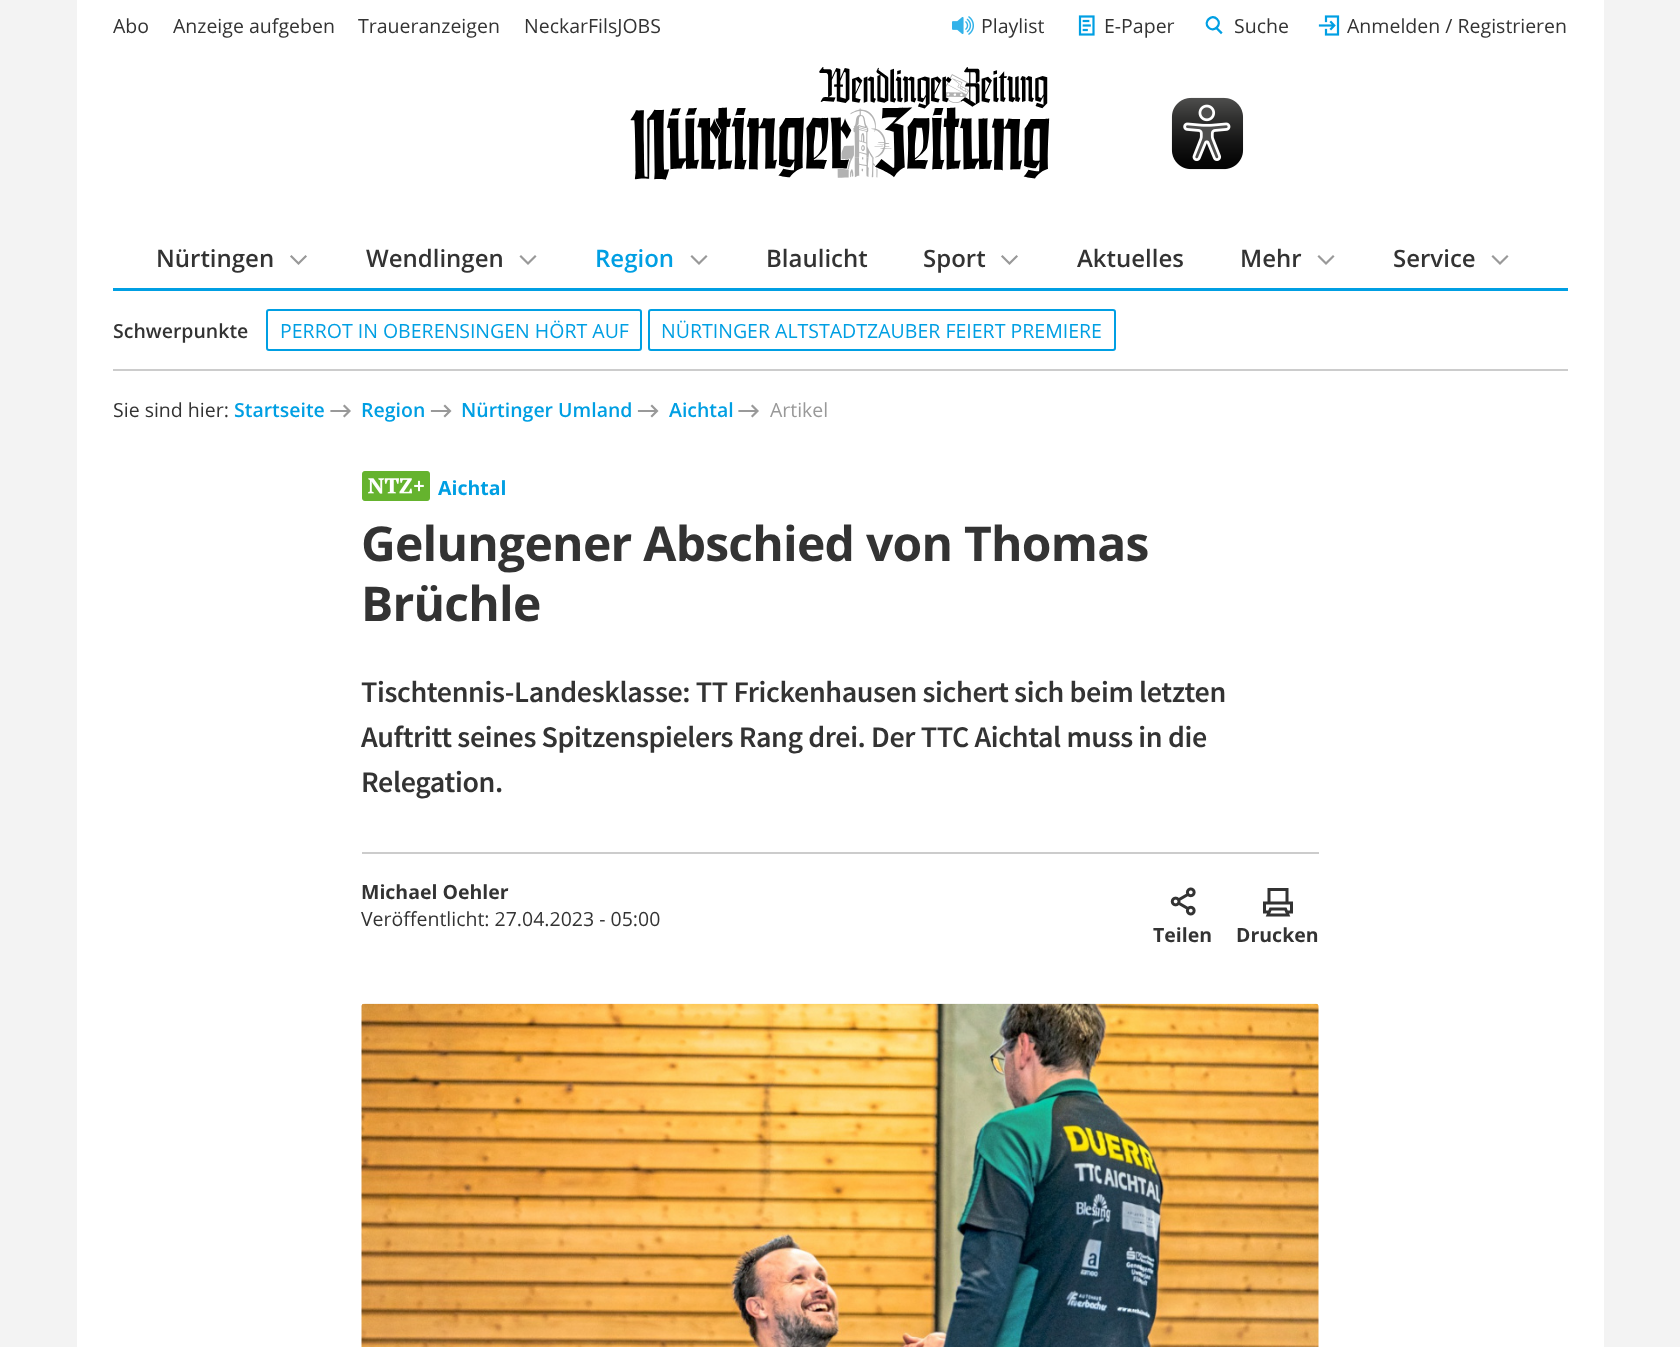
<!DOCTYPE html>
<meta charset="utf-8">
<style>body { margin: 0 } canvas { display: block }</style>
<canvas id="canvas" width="1680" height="1347"></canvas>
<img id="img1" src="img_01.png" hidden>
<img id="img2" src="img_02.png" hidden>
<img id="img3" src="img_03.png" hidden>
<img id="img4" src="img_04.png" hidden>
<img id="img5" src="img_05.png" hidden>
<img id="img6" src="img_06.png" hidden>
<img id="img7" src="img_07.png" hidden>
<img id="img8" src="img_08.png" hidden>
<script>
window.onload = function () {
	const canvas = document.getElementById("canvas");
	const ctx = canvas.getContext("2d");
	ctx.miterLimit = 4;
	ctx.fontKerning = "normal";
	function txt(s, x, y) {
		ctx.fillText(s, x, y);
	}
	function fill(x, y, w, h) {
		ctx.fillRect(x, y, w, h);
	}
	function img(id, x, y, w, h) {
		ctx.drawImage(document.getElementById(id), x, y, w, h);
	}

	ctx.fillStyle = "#F3F3F3";
	fill(0, 0, 1680, 1347);
	ctx.fillStyle = "#FFFFFF";
	fill(77, 0, 1527, 1347);
	img("img1", 952, 16, 22, 19);
	img("img2", 1078, 15, 17, 21);
	ctx.beginPath();
	ctx.moveTo(1208.5, 27.5);
	ctx.bezierCurveTo(1214, 33, 1222.5, 24.5, 1217, 19);
	ctx.bezierCurveTo(1211.5, 13.5, 1203, 22, 1208.5, 27.5);
	ctx.closePath();
	ctx.moveTo(1217, 28.5);
	ctx.lineTo(1221, 32.5);
	ctx.strokeStyle = "#009FE3";
	ctx.lineWidth = 2.3;
	ctx.lineCap = "square";
	ctx.stroke();
	img("img3", 1318, 15, 22, 21);
	ctx.fillStyle = "#009FE3";
	fill(113, 288, 1455, 3);
	ctx.beginPath();
	ctx.moveTo(291.5, 256.5);
	ctx.lineTo(298.5, 263.5);
	ctx.moveTo(305.5, 256.5);
	ctx.lineTo(298.5, 263.5);
	ctx.strokeStyle = "#999999";
	ctx.lineWidth = 2.2;
	ctx.stroke();
	ctx.beginPath();
	ctx.moveTo(521, 256.5);
	ctx.lineTo(528, 263.5);
	ctx.moveTo(535, 256.5);
	ctx.lineTo(528, 263.5);
	ctx.stroke();
	ctx.beginPath();
	ctx.moveTo(692, 256.5);
	ctx.lineTo(699, 263.5);
	ctx.moveTo(706, 256.5);
	ctx.lineTo(699, 263.5);
	ctx.stroke();
	ctx.beginPath();
	ctx.moveTo(1002.5, 256.5);
	ctx.lineTo(1009.5, 263.5);
	ctx.moveTo(1016.5, 256.5);
	ctx.lineTo(1009.5, 263.5);
	ctx.stroke();
	ctx.beginPath();
	ctx.moveTo(1319, 256.5);
	ctx.lineTo(1326, 263.5);
	ctx.moveTo(1333, 256.5);
	ctx.lineTo(1326, 263.5);
	ctx.stroke();
	ctx.beginPath();
	ctx.moveTo(1493, 256.5);
	ctx.lineTo(1500, 263.5);
	ctx.moveTo(1507, 256.5);
	ctx.lineTo(1500, 263.5);
	ctx.stroke();
	ctx.fillStyle = "#CCCCCC";
	fill(113, 369, 1455, 2);
	ctx.beginPath();
	ctx.roundRect(267, 310, 374, 40, 2);
	ctx.strokeStyle = "#009FE3";
	ctx.lineWidth = 2;
	ctx.stroke();
	ctx.beginPath();
	ctx.roundRect(649, 310, 466, 40, 2);
	ctx.stroke();
	img("img4", 630, 67, 420, 113);
	img("img5", 1171, 97, 73, 73);
	ctx.beginPath();
	ctx.moveTo(344.5, 416);
	ctx.lineTo(349.5, 411);
	ctx.moveTo(344.5, 406);
	ctx.lineTo(349.5, 411);
	ctx.moveTo(348.5, 411);
	ctx.lineTo(331.5, 411);
	ctx.strokeStyle = "#999999";
	ctx.lineWidth = 2.2;
	ctx.stroke();
	ctx.beginPath();
	ctx.moveTo(445, 416);
	ctx.lineTo(450, 411);
	ctx.moveTo(445, 406);
	ctx.lineTo(450, 411);
	ctx.moveTo(449, 411);
	ctx.lineTo(432, 411);
	ctx.stroke();
	ctx.beginPath();
	ctx.moveTo(652, 416);
	ctx.lineTo(657, 411);
	ctx.moveTo(652, 406);
	ctx.lineTo(657, 411);
	ctx.moveTo(656, 411);
	ctx.lineTo(639, 411);
	ctx.stroke();
	ctx.beginPath();
	ctx.moveTo(752.5, 416);
	ctx.lineTo(757.5, 411);
	ctx.moveTo(752.5, 406);
	ctx.lineTo(757.5, 411);
	ctx.moveTo(756.5, 411);
	ctx.lineTo(739.5, 411);
	ctx.stroke();
	img("img6", 362, 471, 68, 30);
	fill(362, 852, 957, 2);
	img("img7", 1170, 887, 26, 29);
	ctx.beginPath();
	ctx.moveTo(1269, 889.5);
	ctx.lineTo(1287, 889.5);
	ctx.lineTo(1287, 903);
	ctx.lineTo(1269, 903);
	ctx.closePath();
	ctx.moveTo(1270.5, 909);
	ctx.lineTo(1285.5, 909);
	ctx.lineTo(1288, 915);
	ctx.lineTo(1268, 915);
	ctx.closePath();
	ctx.moveTo(1268, 912);
	ctx.lineTo(1264.5, 912);
	ctx.lineTo(1264.5, 903);
	ctx.lineTo(1291.5, 903);
	ctx.lineTo(1291.5, 912);
	ctx.lineTo(1288, 912);
	ctx.strokeStyle = "#333333";
	ctx.lineWidth = 3;
	ctx.stroke();
	img("img8", 361, 1003, 958, 344);
	ctx.font = "19.5px Open Sans";
	ctx.fillStyle = "#333333";
	txt("Abo", 113, 33);
	txt("Anzeige aufgeben", 173, 33);
	txt("Traueranzeigen", 358, 33);
	txt("NeckarFilsJOBS", 524, 33);
	txt("Playlist", 981, 33);
	txt("E-Paper", 1104, 33);
	txt("Suche", 1234, 33);
	txt("Anmelden / Registrieren", 1347, 33);
	ctx.font = "600 24px Open Sans";
	txt("Nürtingen", 156, 267);
	txt("Wendlingen", 366, 267);
	ctx.fillStyle = "#009FE3";
	txt("Region", 595, 267);
	ctx.fillStyle = "#333333";
	txt("Blaulicht", 766, 267);
	txt("Sport", 923, 267);
	txt("Aktuelles", 1077, 267);
	txt("Mehr", 1240, 267);
	txt("Service", 1393, 267);
	ctx.font = "600 19.5px Open Sans";
	txt("Schwerpunkte", 113, 338);
	ctx.font = "19.5px Open Sans";
	ctx.fillStyle = "#009FE3";
	txt("PERROT IN OBERENSINGEN HÖRT AUF", 280, 338);
	txt("NÜRTINGER ALTSTADTZAUBER FEIERT PREMIERE", 661, 338);
	ctx.fillStyle = "#333333";
	txt("Sie sind hier:", 113, 417);
	ctx.font = "600 19.5px Open Sans";
	ctx.fillStyle = "#009FE3";
	txt("Startseite", 234, 417);
	txt("Region", 361, 417);
	txt("Nürtinger Umland", 461, 417);
	txt("Aichtal", 669, 417);
	ctx.font = "19.5px Open Sans";
	ctx.fillStyle = "#999999";
	txt("Artikel", 770, 417);
	ctx.font = "bold 19.5px Open Sans";
	ctx.fillStyle = "#009FE3";
	txt("Aichtal", 438, 495);
	ctx.letterSpacing = "-0.75px";
	ctx.font = "bold 48px Open Sans";
	ctx.fillStyle = "#333333";
	txt("Gelungener Abschied von Thomas", 361, 561);
	txt("Brüchle", 361, 621);
	ctx.letterSpacing = "-0.38px";
	ctx.font = "600 30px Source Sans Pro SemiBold";
	txt("Tischtennis-Landesklasse: TT Frickenhausen sichert sich beim letzten", 361, 702);
	txt("Auftritt seines Spitzenspielers Rang drei. Der TTC Aichtal muss in die", 361, 747);
	txt("Relegation.", 361, 792);
	ctx.letterSpacing = "0px";
	ctx.font = "bold 19.5px Open Sans";
	txt("Michael Oehler", 361, 899);
	ctx.font = "19.5px Open Sans";
	txt("Veröffentlicht: 27.04.2023 - 05:00", 361, 926);
	ctx.font = "bold 19.5px Open Sans";
	txt("Teilen", 1153, 942);
	txt("Drucken", 1236, 942);
};
</script>
